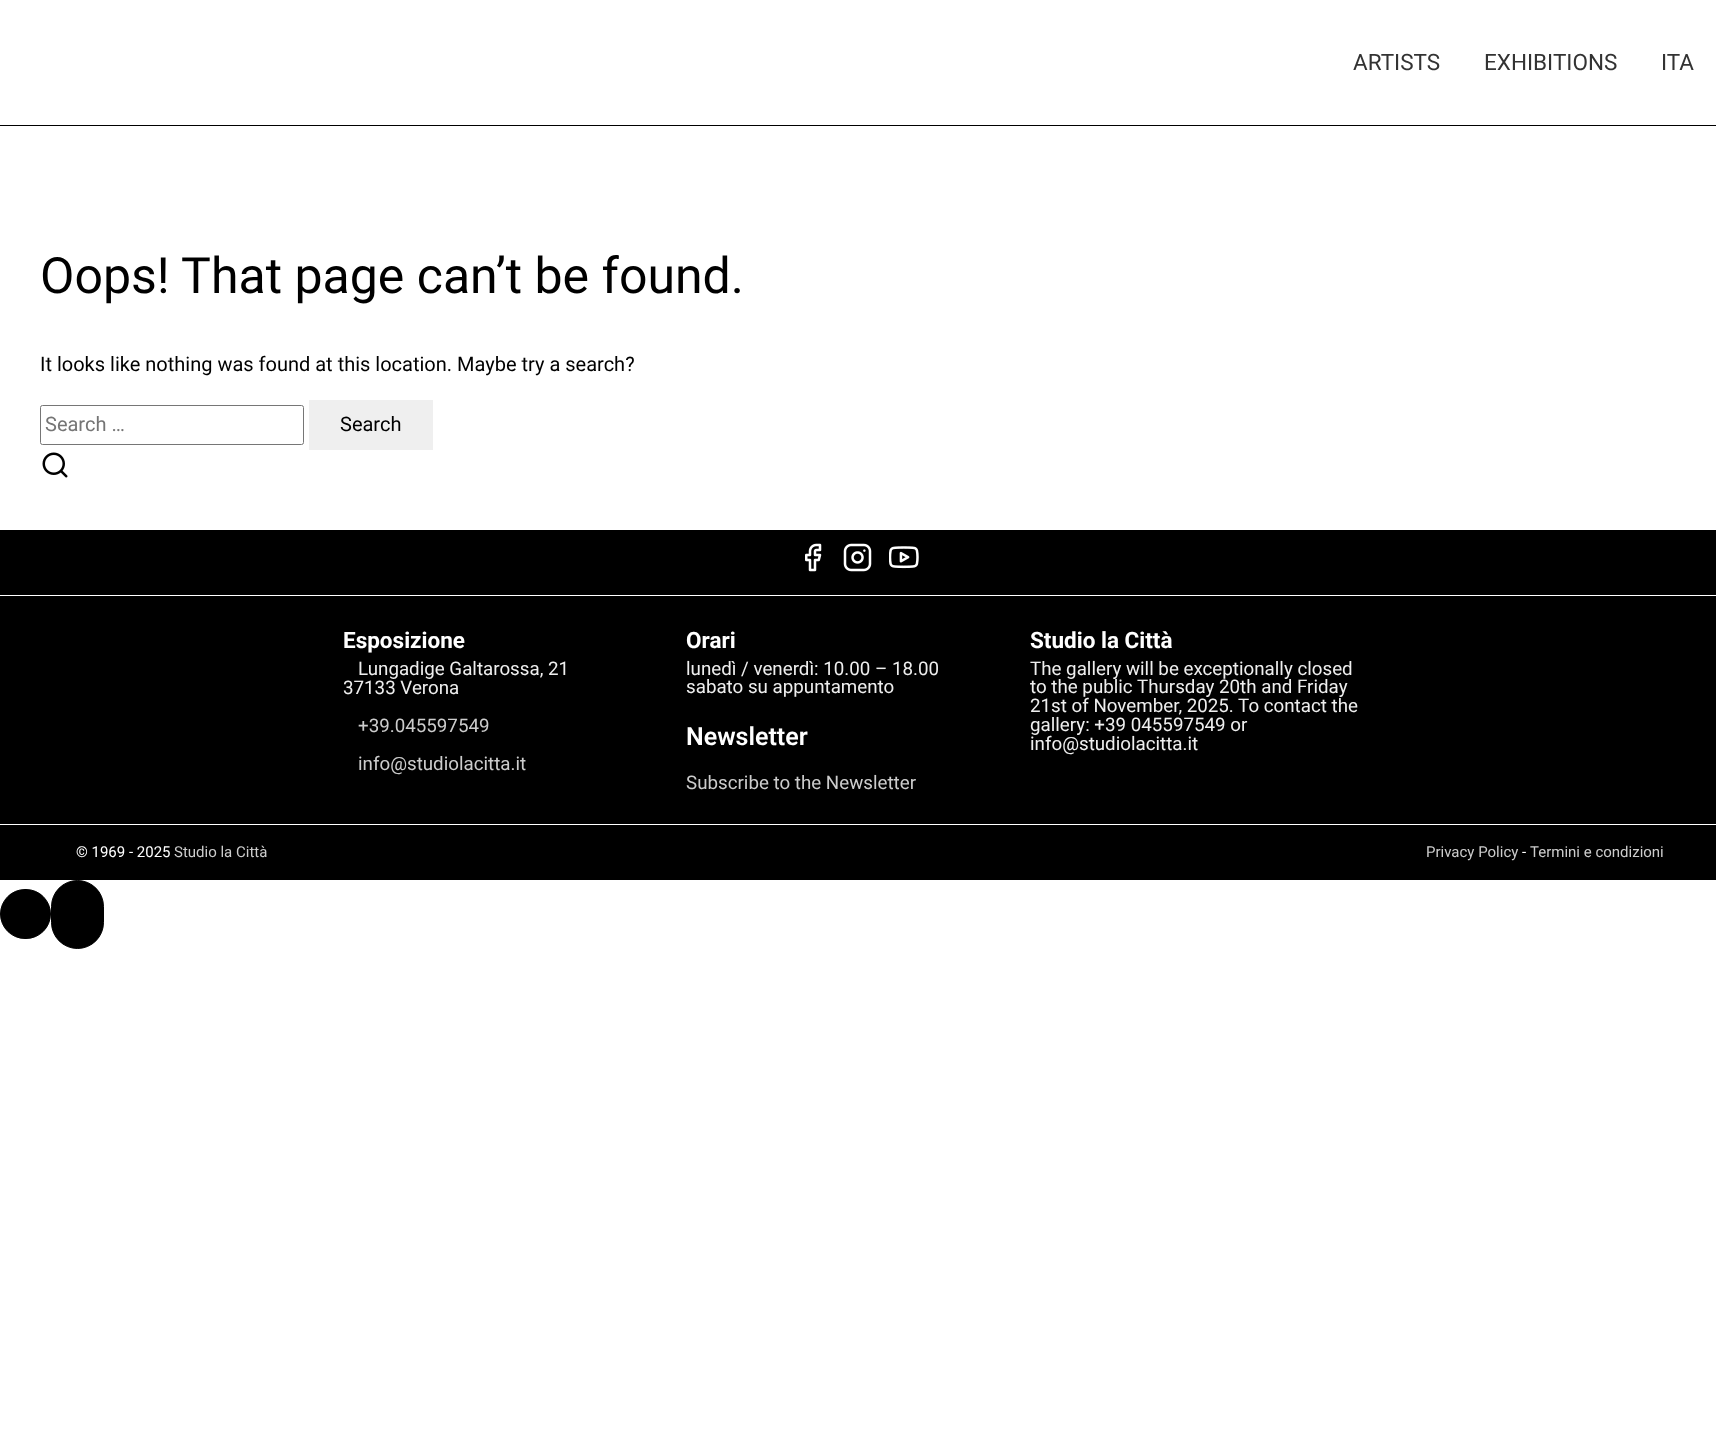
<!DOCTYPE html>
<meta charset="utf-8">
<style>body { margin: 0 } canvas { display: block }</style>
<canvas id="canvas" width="1716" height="1431"></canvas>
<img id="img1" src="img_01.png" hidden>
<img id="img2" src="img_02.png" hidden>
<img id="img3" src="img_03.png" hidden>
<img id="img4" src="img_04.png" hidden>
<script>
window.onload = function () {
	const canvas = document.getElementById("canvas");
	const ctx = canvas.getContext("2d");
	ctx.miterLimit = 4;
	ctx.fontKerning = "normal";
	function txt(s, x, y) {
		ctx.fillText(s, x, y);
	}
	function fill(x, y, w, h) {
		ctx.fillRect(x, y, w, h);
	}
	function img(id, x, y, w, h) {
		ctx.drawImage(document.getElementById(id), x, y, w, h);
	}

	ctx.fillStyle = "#FFFFFF";
	fill(0, 0, 1716, 1431);
	ctx.fillStyle = "#000000";
	fill(0, 125, 1716, 1);
	ctx.beginPath();
	ctx.roundRect(40.5, 405.5, 263, 39, 2);
	ctx.strokeStyle = "#767676";
	ctx.stroke();
	ctx.fillStyle = "#EFEFEF";
	fill(309, 400, 124, 50);
	img("img1", 42, 452, 26, 26);
	ctx.fillStyle = "#000000";
	fill(0, 530, 1716, 350);
	img("img2", 805, 543, 17, 29);
	img("img3", 843, 543, 29, 29);
	img("img4", 889, 546, 30, 23);
	ctx.fillStyle = "#FFFFFF";
	fill(0, 595, 1716, 1);
	fill(0, 824, 1716, 1);
	ctx.fillStyle = "#000000";
	ctx.beginPath();
	ctx.roundRect(0.5, 889.5, 50, 49, 24.5);
	ctx.fill();
	ctx.strokeStyle = "#000000";
	ctx.stroke();
	ctx.beginPath();
	ctx.roundRect(51.5, 880.5, 52, 68, 26);
	ctx.fill();
	ctx.stroke();
	ctx.font = "22.5px Roboto";
	ctx.fillStyle = "#333333";
	txt("ARTISTS", 1353, 70);
	txt("EXHIBITIONS", 1484, 70);
	txt("ITA", 1661, 70);
	ctx.font = "50px Roboto";
	ctx.fillStyle = "#000000";
	txt("Oops! That page can’t be found.", 40, 293);
	ctx.font = "20px Roboto";
	txt("It looks like nothing was found at this location. Maybe try a search?", 40, 371);
	ctx.fillStyle = "#757575";
	txt("Search …", 45, 431);
	ctx.fillStyle = "#000000";
	txt("Search", 340, 431);
	ctx.font = "bold 22.5px Roboto";
	ctx.fillStyle = "#FFFFFF";
	txt("Esposizione", 343, 648);
	ctx.font = "18.75px Roboto";
	ctx.fillStyle = "#EEEEEE";
	txt("Lungadige Galtarossa, 21", 358, 675);
	txt("37133 Verona", 343, 694);
	ctx.fillStyle = "#CCCCCC";
	txt("+39.045597549", 358, 732);
	txt("info@studiolacitta.it", 358, 770);
	ctx.font = "bold 22.5px Roboto";
	ctx.fillStyle = "#FFFFFF";
	txt("Orari", 686, 648);
	ctx.font = "18.75px Roboto";
	ctx.fillStyle = "#EEEEEE";
	txt("lunedì / venerdì: 10.00 – 18.00", 686, 675);
	txt("sabato su appuntamento", 686, 693);
	ctx.font = "600 25px Roboto";
	ctx.fillStyle = "#FFFFFF";
	txt("Newsletter", 686, 745);
	ctx.font = "18.75px Roboto";
	ctx.fillStyle = "#CCCCCC";
	txt("Subscribe to the Newsletter", 686, 789);
	ctx.font = "bold 22.5px Roboto";
	ctx.fillStyle = "#FFFFFF";
	txt("Studio la Città", 1030, 648);
	ctx.font = "18.75px Roboto";
	ctx.fillStyle = "#EEEEEE";
	txt("The gallery will be exceptionally closed", 1030, 675);
	txt("to the public Thursday 20th and Friday", 1030, 693);
	txt("21st of November, 2025. To contact the", 1030, 712);
	txt("gallery: +39 045597549 or", 1030, 731);
	txt("info@studiolacitta.it", 1030, 750);
	ctx.font = "15px Roboto";
	ctx.fillStyle = "#FFFFFF";
	txt("© 1969 - 2025", 76, 857);
	ctx.fillStyle = "#CCCCCC";
	txt("Studio la Città", 174, 857);
	txt("Privacy Policy", 1426, 857);
	ctx.fillStyle = "#FFFFFF";
	txt("-", 1522, 857);
	ctx.fillStyle = "#CCCCCC";
	txt("Termini e condizioni", 1530, 857);
};
</script>
